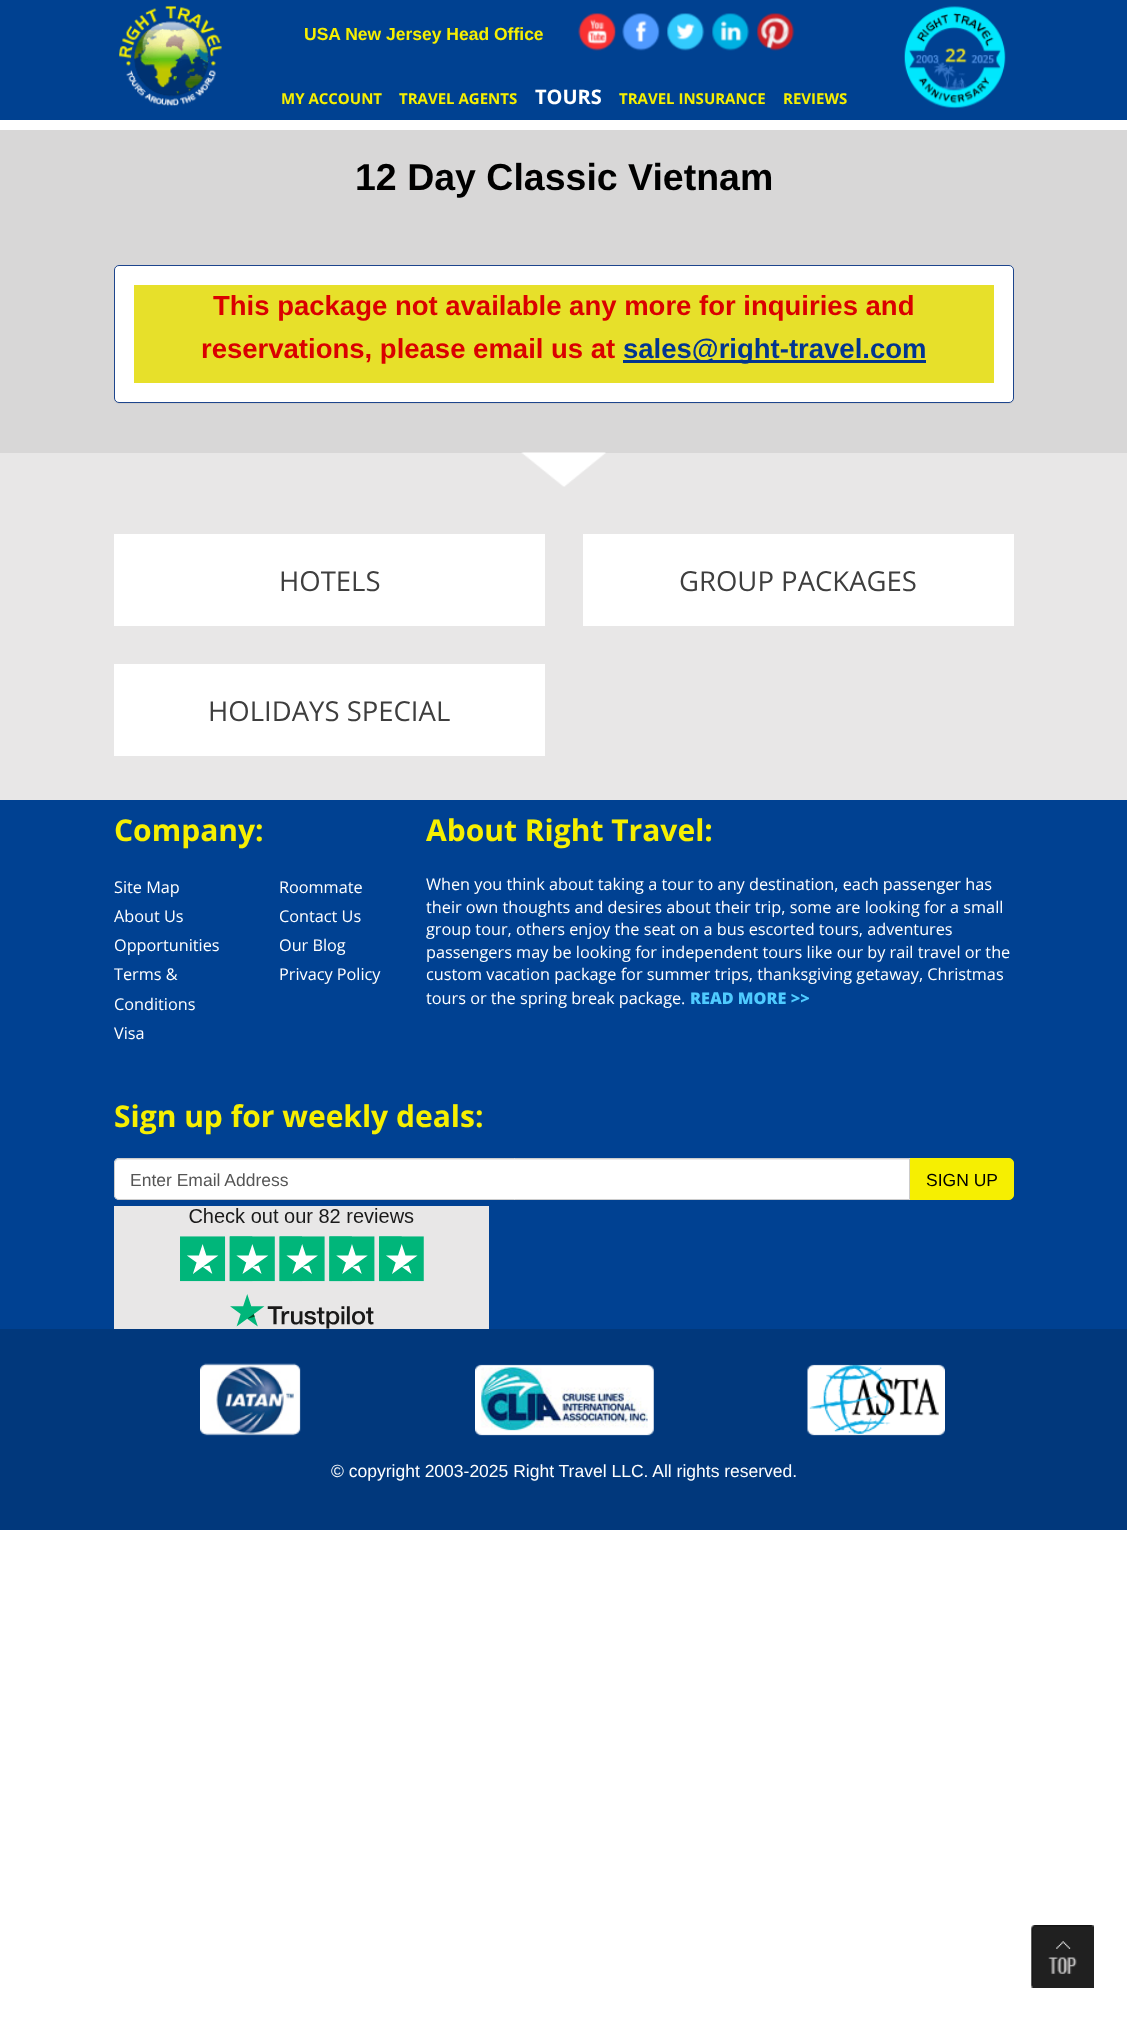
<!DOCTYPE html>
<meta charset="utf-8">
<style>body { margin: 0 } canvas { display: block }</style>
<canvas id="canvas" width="1127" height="2020"></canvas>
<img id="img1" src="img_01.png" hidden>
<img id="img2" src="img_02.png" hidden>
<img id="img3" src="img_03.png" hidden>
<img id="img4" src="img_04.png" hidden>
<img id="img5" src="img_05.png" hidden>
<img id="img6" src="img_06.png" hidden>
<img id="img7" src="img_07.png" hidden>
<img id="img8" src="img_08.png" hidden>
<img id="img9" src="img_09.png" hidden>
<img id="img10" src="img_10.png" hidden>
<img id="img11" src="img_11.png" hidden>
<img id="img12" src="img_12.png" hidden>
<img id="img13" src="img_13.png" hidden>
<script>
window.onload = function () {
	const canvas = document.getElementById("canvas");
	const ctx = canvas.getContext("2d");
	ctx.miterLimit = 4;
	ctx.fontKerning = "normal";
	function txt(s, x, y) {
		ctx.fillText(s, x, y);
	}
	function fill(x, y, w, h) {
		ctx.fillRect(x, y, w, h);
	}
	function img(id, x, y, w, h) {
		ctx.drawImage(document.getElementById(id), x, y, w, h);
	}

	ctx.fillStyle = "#FFFFFF";
	fill(0, 0, 1127, 2020);
	ctx.fillStyle = "#004191";
	fill(0, 0, 1127, 120);
	img("img1", 119, 6, 103, 100);
	img("img2", 578, 13, 38, 38);
	img("img3", 622, 13, 38, 38);
	img("img4", 667, 13, 38, 38);
	img("img5", 712, 13, 38, 38);
	img("img6", 756, 13, 39, 38);
	img("img7", 904, 6, 102, 103);
	ctx.fillStyle = "#D8D7D7";
	fill(0, 130, 1127, 323);
	ctx.fillStyle = "rgba(0, 0, 0, 0.05)";
	ctx.filter = "blur(0.5px)";
	ctx.beginPath();
	ctx.roundRect(114, 266, 900, 138, 5);
	ctx.fill();
	ctx.filter = "none";
	ctx.fillStyle = "#FFFFFF";
	ctx.beginPath();
	ctx.roundRect(114.5, 265.5, 899, 137, 4.5);
	ctx.fill();
	ctx.strokeStyle = "#1D458D";
	ctx.stroke();
	ctx.fillStyle = "#E7E02A";
	fill(134, 285, 860, 98);
	ctx.fillStyle = "#023590";
	fill(623, 360, 303, 3);
	ctx.fillStyle = "#E8E7E7";
	fill(0, 453, 1127, 347);
	img("img8", 521, 452, 85, 35);
	ctx.fillStyle = "#FFFFFF";
	fill(114, 534, 431, 92);
	fill(583, 534, 431, 92);
	fill(114, 664, 431, 92);
	ctx.fillStyle = "#004192";
	fill(0, 800, 1127, 529);
	ctx.fillStyle = "#F6EF01";
	ctx.beginPath();
	ctx.roundRect(909.5, 1158.5, 104, 41, [0, 4.5, 4.5, 0]);
	ctx.fill();
	ctx.strokeStyle = "#F6EF01";
	ctx.stroke();
	ctx.fillStyle = "#FFFFFF";
	ctx.beginPath();
	ctx.roundRect(114, 1158, 796, 42, [5, 0, 0, 5]);
	ctx.fill();
	ctx.fillStyle = "#ECECEC";
	ctx.beginPath();
	ctx.moveTo(119, 1160);
	ctx.lineTo(909, 1160);
	ctx.lineTo(909, 1159);
	ctx.lineTo(119, 1159);
	ctx.bezierCurveTo(116, 1159, 115, 1161, 115, 1164);
	ctx.bezierCurveTo(115, 1162, 117, 1160, 119, 1160);
	ctx.closePath();
	ctx.fill();
	ctx.beginPath();
	ctx.roundRect(114.5, 1158.5, 795, 41, [4.5, 0, 0, 4.5]);
	ctx.strokeStyle = "#CCCCCC";
	ctx.stroke();
	ctx.fillStyle = "#E8E7E7";
	fill(114, 1206, 375, 123);
	img("img9", 180, 1208, 244, 121);
	img("img10", 1031, 1925, 63, 63);
	ctx.fillStyle = "#01387C";
	fill(0, 1329, 1127, 201);
	img("img11", 200, 1363, 101, 73);
	img("img12", 475, 1364, 179, 72);
	img("img13", 807, 1364, 138, 72);
	ctx.font = "bold 17.5px Liberation Sans";
	ctx.fillStyle = "#F6EF01";
	txt("USA New Jersey Head Office", 304, 40);
	ctx.font = "bold 15px Open Sans";
	txt("MY ACCOUNT", 281, 104);
	txt("TRAVEL AGENTS", 399, 104);
	ctx.font = "bold 20px Open Sans";
	ctx.fillStyle = "#FFFFFF";
	txt("TOURS", 535, 104);
	ctx.font = "bold 15px Open Sans";
	ctx.fillStyle = "#F6EF01";
	txt("TRAVEL INSURANCE", 619, 104);
	txt("REVIEWS", 783, 104);
	ctx.font = "bold 37.5px Liberation Sans";
	ctx.fillStyle = "#000000";
	txt("12 Day Classic Vietnam", 355, 190);
	ctx.font = "bold 27.5px Liberation Sans";
	ctx.fillStyle = "#DA0000";
	txt("This package not available any more for inquiries and", 213, 315);
	txt("reservations, please email us at", 201, 358);
	ctx.fillStyle = "#023590";
	txt("sales@right-travel.com", 623, 358);
	ctx.font = "27.5px Open Sans";
	ctx.fillStyle = "#3E3E3E";
	txt("HOTELS", 279, 591);
	txt("GROUP PACKAGES", 679, 591);
	txt("HOLIDAYS SPECIAL", 208, 721);
	ctx.font = "bold 30px Open Sans";
	ctx.fillStyle = "#F6EF01";
	txt("Company:", 114, 841);
	ctx.font = "16.25px Open Sans";
	ctx.fillStyle = "#FFFFFF";
	txt("Site Map", 114, 893);
	txt("About Us", 114, 922);
	txt("Opportunities", 114, 951);
	txt("Terms &", 114, 980);
	txt("Conditions", 114, 1010);
	txt("Visa", 114, 1039);
	txt("Roommate", 279, 893);
	txt("Contact Us", 279, 922);
	txt("Our Blog", 279, 951);
	txt("Privacy Policy", 279, 980);
	ctx.font = "bold 30px Open Sans";
	ctx.fillStyle = "#F6EF01";
	txt("About Right Travel:", 426, 841);
	ctx.font = "16.25px Open Sans";
	ctx.fillStyle = "#FFFFFF";
	txt("When you think about taking a tour to any destination, each passenger has", 426, 890);
	txt("their own thoughts and desires about their trip, some are looking for a small", 426, 913);
	txt("group tour, others enjoy the seat on a bus escorted tours, adventures", 426, 935);
	txt("passengers may be looking for independent tours like our by rail travel or the", 426, 958);
	txt("custom vacation package for summer trips, thanksgiving getaway, Christmas", 426, 980);
	txt("tours or the spring break package.", 426, 1004);
	ctx.font = "800 16.25px Open Sans";
	ctx.fillStyle = "#4FCBFF";
	txt("READ MORE >>", 690, 1004);
	ctx.font = "bold 30px Open Sans";
	ctx.fillStyle = "#F6EF01";
	txt("Sign up for weekly deals:", 114, 1127);
	ctx.font = "17.5px Liberation Sans";
	ctx.fillStyle = "#555555";
	txt("Enter Email Address", 130, 1186);
	ctx.fillStyle = "#000000";
	txt("SIGN UP", 926, 1186);
	ctx.fillStyle = "#FFFFFF";
	txt("© copyright 2003-2025 Right Travel LLC. All rights reserved.", 331, 1477);
};
</script>
